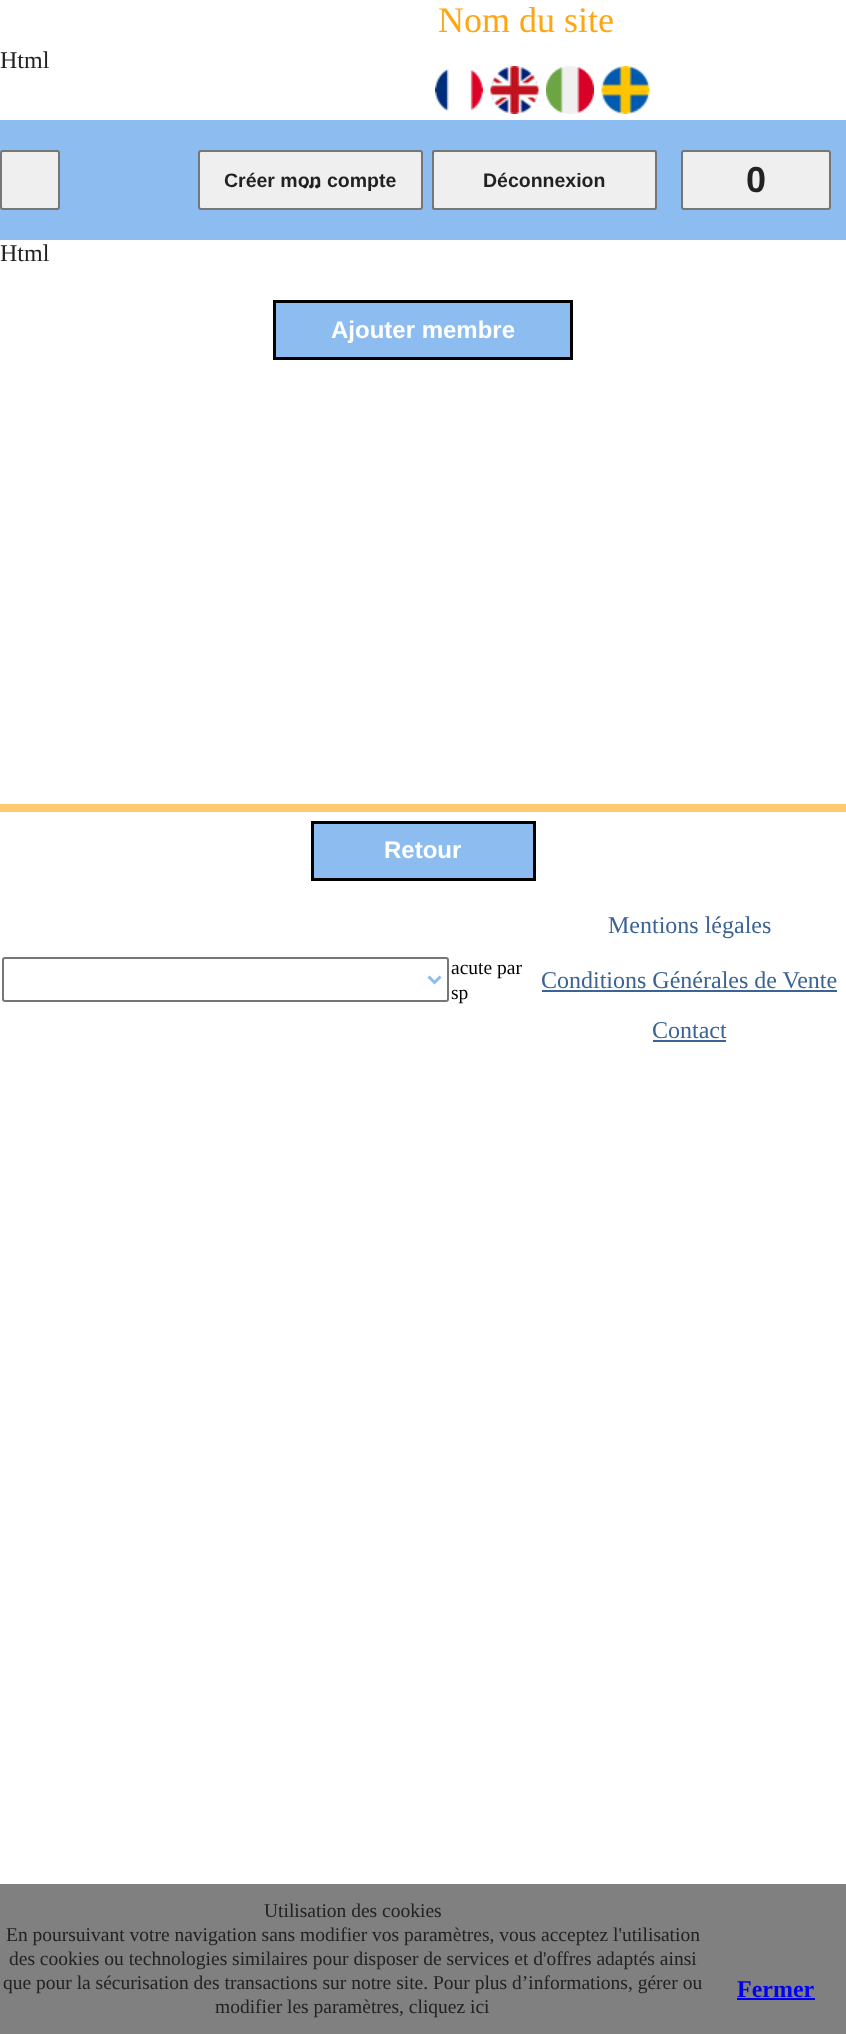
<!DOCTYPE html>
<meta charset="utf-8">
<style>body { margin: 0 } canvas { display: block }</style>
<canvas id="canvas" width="846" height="2034"></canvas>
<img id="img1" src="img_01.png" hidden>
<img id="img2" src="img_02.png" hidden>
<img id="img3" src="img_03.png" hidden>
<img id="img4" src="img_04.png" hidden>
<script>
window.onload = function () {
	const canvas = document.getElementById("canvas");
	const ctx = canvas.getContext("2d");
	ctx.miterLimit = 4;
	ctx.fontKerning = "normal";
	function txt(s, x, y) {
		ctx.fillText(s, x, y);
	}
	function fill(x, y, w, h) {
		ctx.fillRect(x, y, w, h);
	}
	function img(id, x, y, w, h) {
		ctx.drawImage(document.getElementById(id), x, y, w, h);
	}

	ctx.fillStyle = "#FFFFFF";
	fill(0, 0, 846, 2034);
	img("img1", 435, 69, 48, 43);
	img("img2", 490, 66, 49, 48);
	img("img3", 546, 66, 48, 48);
	img("img4", 601, 66, 49, 48);
	ctx.fillStyle = "#8DBDF0";
	fill(0, 120, 846, 120);
	ctx.fillStyle = "#EFEFEF";
	ctx.beginPath();
	ctx.roundRect(1, 151, 58, 58, 2);
	ctx.fill();
	ctx.strokeStyle = "#767676";
	ctx.lineWidth = 2;
	ctx.stroke();
	ctx.beginPath();
	ctx.roundRect(199, 151, 223, 58, 2);
	ctx.fill();
	ctx.stroke();
	ctx.beginPath();
	ctx.roundRect(433, 151, 223, 58, 2);
	ctx.stroke();
	ctx.beginPath();
	ctx.roundRect(433, 151, 223, 58, 2);
	ctx.fill();
	ctx.stroke();
	ctx.beginPath();
	ctx.roundRect(682, 151, 148, 58, 2);
	ctx.fill();
	ctx.stroke();
	ctx.fillStyle = "#8DBDF0";
	ctx.beginPath();
	ctx.rect(274.5, 301.5, 297, 57);
	ctx.fill();
	ctx.strokeStyle = "#000000";
	ctx.lineWidth = 3;
	ctx.stroke();
	ctx.fillStyle = "#FFC96F";
	fill(0, 804, 846, 8);
	ctx.fillStyle = "#8DBDF0";
	ctx.beginPath();
	ctx.rect(312.5, 822.5, 222, 57);
	ctx.fill();
	ctx.stroke();
	ctx.beginPath();
	ctx.roundRect(3, 958, 445, 43, 2);
	ctx.strokeStyle = "#767676";
	ctx.lineWidth = 2;
	ctx.stroke();
	ctx.beginPath();
	ctx.moveTo(428.5, 976.5);
	ctx.lineTo(434.5, 982.5);
	ctx.lineTo(440.5, 976.5);
	ctx.strokeStyle = "#8DBDF0";
	ctx.lineWidth = 3;
	ctx.stroke();
	ctx.fillStyle = "#3B6394";
	fill(542, 990, 295, 2);
	fill(653, 1040, 73, 2);
	ctx.fillStyle = "#808080";
	fill(0, 1884, 846, 150);
	ctx.fillStyle = "#0000EE";
	fill(737, 1998, 78, 2);
	ctx.font = "36px Liberation Serif";
	ctx.fillStyle = "#FFA611";
	txt("Nom du site", 438, 32);
	ctx.font = "24px Liberation Serif";
	ctx.fillStyle = "#222222";
	txt("Html", 0, 68);
	txt("Html", 0, 261);
	ctx.font = "bold 19.5px Liberation Sans";
	txt("Créer mon compte", 224, 187);
	ctx.font = "bold 24px Liberation Serif";
	txt("...", 302, 188);
	ctx.font = "bold 19.5px Liberation Sans";
	txt("Déconnexion", 483, 187);
	ctx.font = "bold 36px Liberation Sans";
	txt("0", 746, 192);
	ctx.font = "bold 24px Liberation Sans";
	ctx.fillStyle = "#FFFFFF";
	txt("Ajouter membre", 331, 338);
	txt("Retour", 384, 858);
	ctx.font = "19.5px Liberation Serif";
	ctx.fillStyle = "#000000";
	txt("acute par", 451, 974);
	txt("sp", 451, 999);
	ctx.font = "24px Liberation Serif";
	ctx.fillStyle = "#3B6394";
	txt("Mentions légales", 608, 933);
	txt("Conditions Générales de Vente", 541, 988);
	txt("Contact", 652, 1038);
	ctx.font = "19.5px Liberation Serif";
	ctx.fillStyle = "#222222";
	txt("Utilisation des cookies", 264, 1917);
	txt("En poursuivant votre navigation sans modifier vos paramètres, vous acceptez l'utilisation", 6, 1941);
	txt("des cookies ou technologies similaires pour disposer de services et d'offres adaptés ainsi", 9, 1965);
	txt("que pour la sécurisation des transactions sur notre site. Pour plus d’informations, gérer ou", 3, 1989);
	txt("modifier les paramètres, cliquez ici", 215, 2013);
	ctx.font = "bold 24px Liberation Serif";
	ctx.fillStyle = "#0000EE";
	txt("Fermer", 737, 1997);
};
</script>
